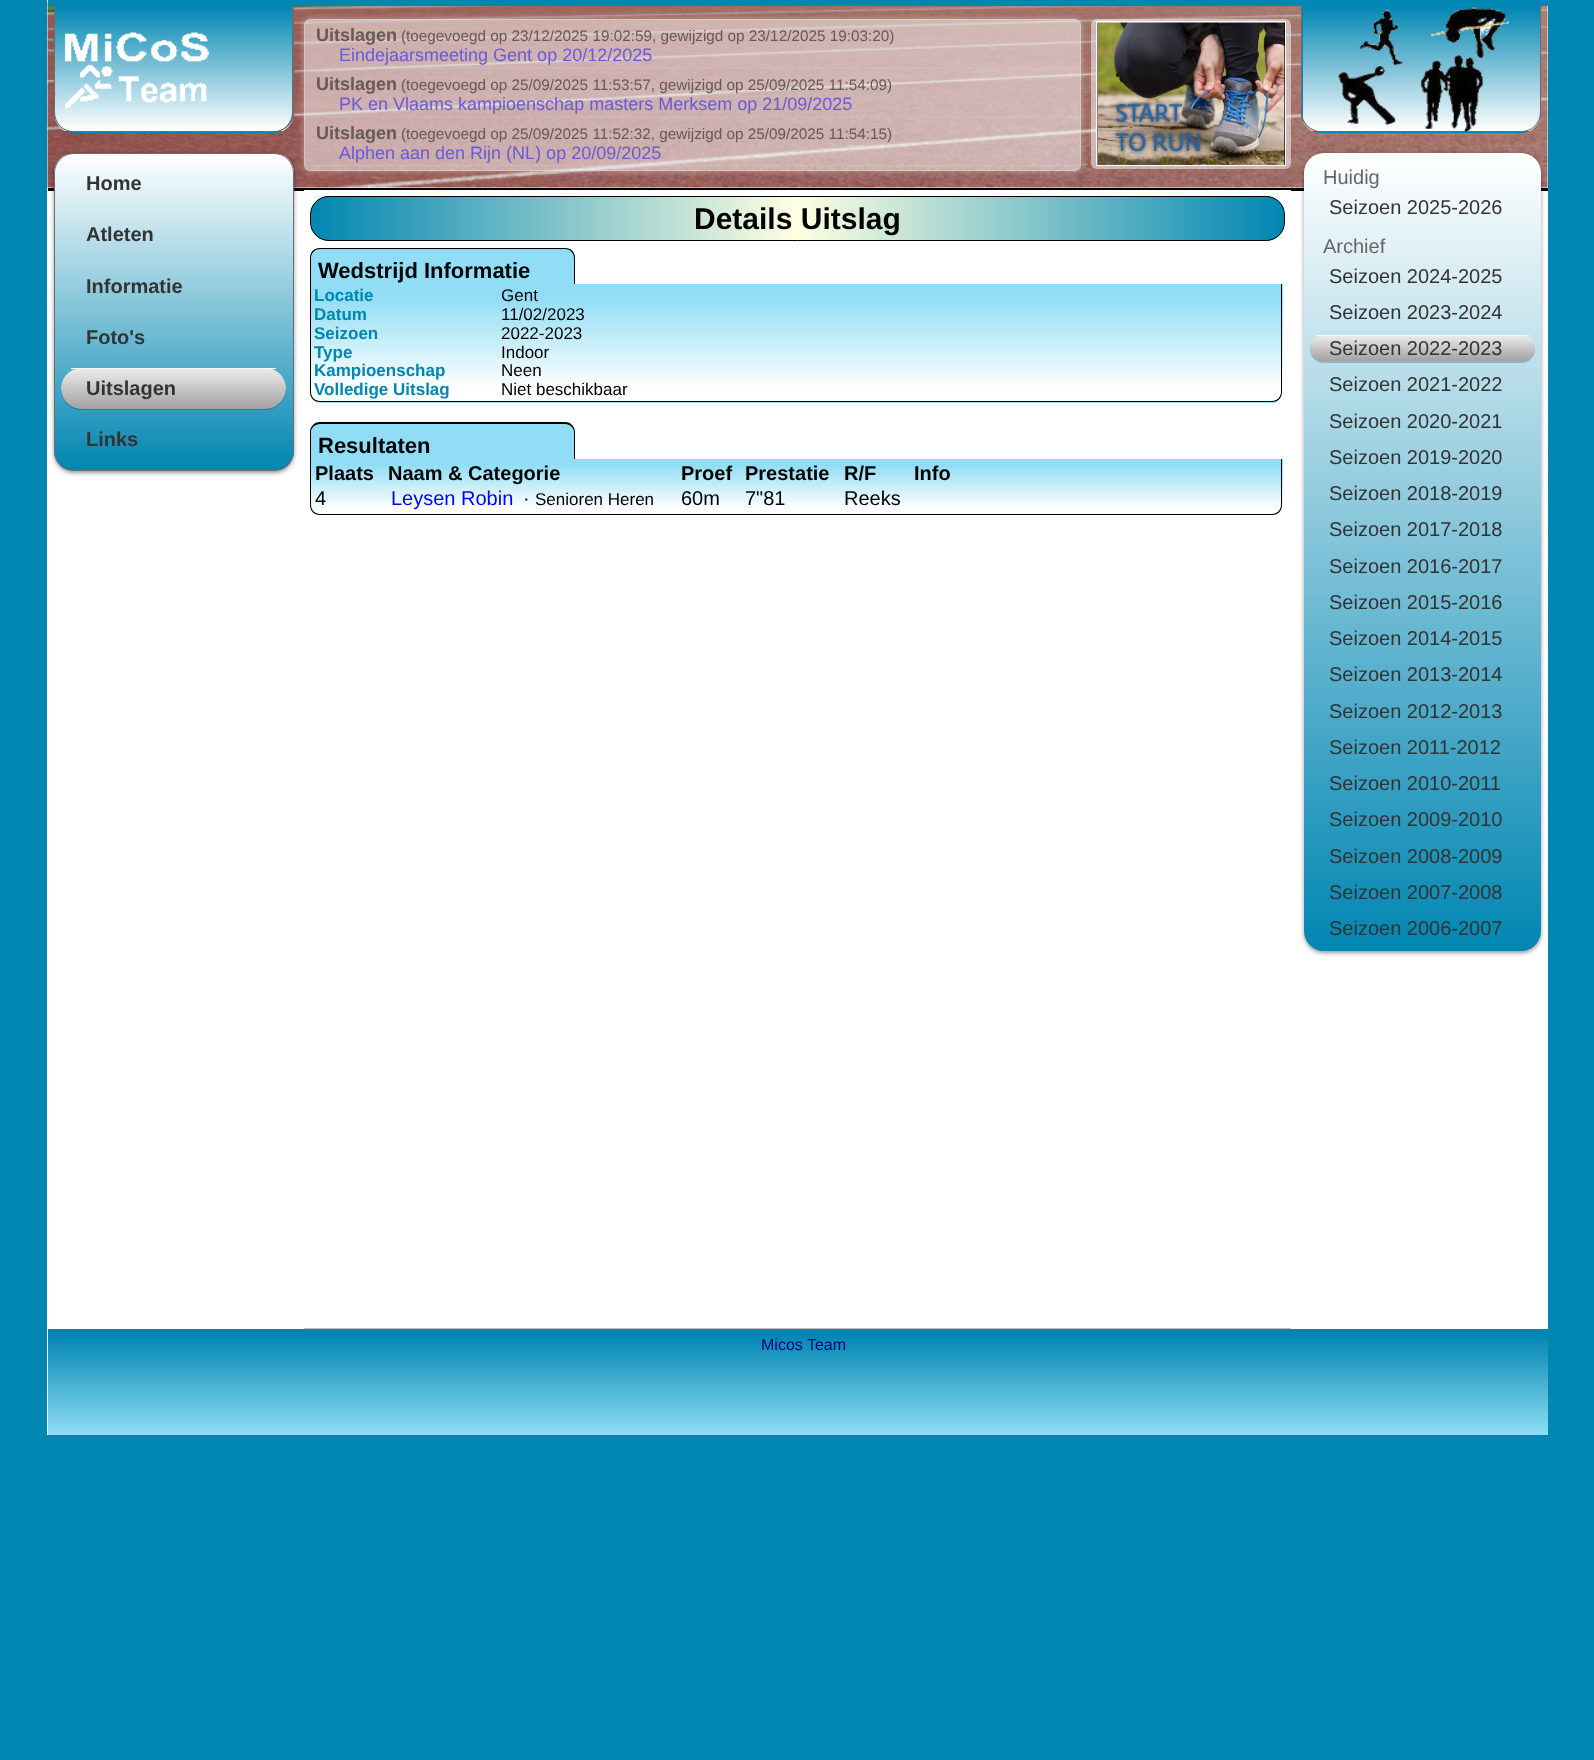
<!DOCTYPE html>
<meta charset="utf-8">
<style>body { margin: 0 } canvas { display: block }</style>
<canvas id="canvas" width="1594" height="1760"></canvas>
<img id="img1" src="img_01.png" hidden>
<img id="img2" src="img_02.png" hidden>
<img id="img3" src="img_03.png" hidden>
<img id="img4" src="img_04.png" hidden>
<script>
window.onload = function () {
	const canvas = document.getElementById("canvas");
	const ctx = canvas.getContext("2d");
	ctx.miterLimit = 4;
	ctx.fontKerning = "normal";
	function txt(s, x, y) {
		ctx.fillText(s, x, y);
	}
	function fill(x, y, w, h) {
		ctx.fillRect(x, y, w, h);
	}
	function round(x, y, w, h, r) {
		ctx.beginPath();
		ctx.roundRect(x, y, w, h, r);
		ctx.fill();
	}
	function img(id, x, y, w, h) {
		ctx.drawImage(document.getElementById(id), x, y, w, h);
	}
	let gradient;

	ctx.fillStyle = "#0086B2";
	fill(0, 0, 1594, 1760);
	ctx.fillStyle = "#FFFFFF";
	fill(47, 0, 1501, 1435);
	img("img1", 47, 0, 1501, 188);
	ctx.fillStyle = "#000000";
	fill(48, 188, 1500, 3);
	ctx.fillStyle = "#0086B2";
	fill(48, 0, 1500, 6);
	ctx.beginPath();
	ctx.roundRect(54, 6, 240, 127, [0, 0, 20, 20]);
	ctx.fill();
	ctx.save();
	ctx.beginPath();
	ctx.roundRect(54, 6, 240, 127, [0, 0, 20, 20]);
	ctx.clip();
	gradient = ctx.createLinearGradient(55, 6.2, 55, 131);
	gradient.addColorStop(0, "#0086B2");
	gradient.addColorStop(1, "#FFFFFF");
	ctx.fillStyle = gradient;
	fill(55, 6, 238, 125);
	ctx.restore();
	ctx.fillStyle = "#6D6D6D";
	ctx.beginPath();
	ctx.moveTo(54, 6);
	ctx.lineTo(294, 6);
	ctx.lineTo(294, 112);
	ctx.bezierCurveTo(294, 124, 285, 132, 274, 132);
	ctx.lineTo(74, 132);
	ctx.bezierCurveTo(63, 132, 54, 124, 54, 112);
	ctx.closePath();
	ctx.moveTo(55, 6);
	ctx.lineTo(292, 6);
	ctx.lineTo(292, 112);
	ctx.bezierCurveTo(292, 123, 284, 131, 274, 131);
	ctx.lineTo(74, 131);
	ctx.bezierCurveTo(63, 131, 55, 123, 55, 112);
	ctx.closePath();
	ctx.fill("evenodd");
	img("img2", 55, 32, 154, 77);
	ctx.save();
	ctx.beginPath();
	ctx.moveTo(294, 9);
	ctx.lineTo(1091, 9);
	ctx.lineTo(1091, 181);
	ctx.lineTo(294, 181);
	ctx.closePath();
	ctx.moveTo(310, 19);
	ctx.lineTo(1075, 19);
	ctx.bezierCurveTo(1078.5, 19, 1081, 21.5, 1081, 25);
	ctx.lineTo(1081, 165);
	ctx.bezierCurveTo(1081, 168.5, 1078.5, 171, 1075, 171);
	ctx.lineTo(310, 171);
	ctx.bezierCurveTo(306.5, 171, 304, 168.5, 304, 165);
	ctx.lineTo(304, 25);
	ctx.bezierCurveTo(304, 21.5, 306.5, 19, 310, 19);
	ctx.closePath();
	ctx.clip("evenodd");
	ctx.fillStyle = "rgba(221, 221, 221, 0.5)";
	ctx.filter = "blur(3px)";
	ctx.beginPath();
	ctx.roundRect(304, 19, 777, 152, 6);
	ctx.fill();
	ctx.filter = "none";
	ctx.restore();
	ctx.fillStyle = "rgba(255, 255, 255, 0.5)";
	round(304, 19, 777, 152, 6);
	ctx.beginPath();
	ctx.roundRect(304.5, 19.5, 776, 151, 5.5);
	ctx.strokeStyle = "rgba(221, 221, 221, 0.5)";
	ctx.stroke();
	ctx.save();
	ctx.beginPath();
	ctx.roundRect(305, 20, 775, 150, 5);
	ctx.clip();
	ctx.beginPath();
	ctx.moveTo(311, 68);
	ctx.lineTo(1111, 68);
	ctx.lineWidth = 1.2;
	ctx.setLineDash([1.25, 1.25]);
	ctx.stroke();
	ctx.beginPath();
	ctx.moveTo(311, 117);
	ctx.lineTo(1111, 117);
	ctx.stroke();
	ctx.beginPath();
	ctx.moveTo(311, 165.5);
	ctx.lineTo(1111, 165.5);
	ctx.stroke();
	ctx.restore();
	round(1091, 19, 200, 150, 6);
	ctx.fillStyle = "#FFFFFF";
	fill(1096, 21, 190, 145);
	img("img3", 1097, 22, 188, 143);
	ctx.fillStyle = "#0086B2";
	ctx.beginPath();
	ctx.roundRect(1301, 6, 240, 127, [0, 0, 20, 20]);
	ctx.fill();
	ctx.save();
	ctx.beginPath();
	ctx.roundRect(1301, 6, 240, 127, [0, 0, 20, 20]);
	ctx.clip();
	gradient = ctx.createLinearGradient(1303, 6.2, 1303, 131);
	gradient.addColorStop(0, "#0086B2");
	gradient.addColorStop(1, "#FFFFFF");
	ctx.fillStyle = gradient;
	fill(1303, 6, 237, 125);
	ctx.restore();
	ctx.fillStyle = "#6D6D6D";
	ctx.beginPath();
	ctx.moveTo(1301, 6);
	ctx.lineTo(1541, 6);
	ctx.lineTo(1541, 112);
	ctx.bezierCurveTo(1541, 124, 1532, 132, 1521, 132);
	ctx.lineTo(1321, 132);
	ctx.bezierCurveTo(1310, 132, 1301, 124, 1301, 112);
	ctx.closePath();
	ctx.moveTo(1302, 6);
	ctx.lineTo(1540, 6);
	ctx.lineTo(1540, 112);
	ctx.bezierCurveTo(1540, 123, 1532, 131, 1521, 131);
	ctx.lineTo(1321, 131);
	ctx.bezierCurveTo(1311, 131, 1302, 123, 1302, 112);
	ctx.closePath();
	ctx.fill("evenodd");
	img("img4", 1338, 7, 171, 125);
	ctx.fillStyle = "rgba(0, 0, 0, 0.4)";
	ctx.filter = "blur(2px)";
	ctx.beginPath();
	ctx.roundRect(54, 154, 240, 319, 20);
	ctx.fill();
	ctx.filter = "none";
	ctx.save();
	ctx.beginPath();
	ctx.roundRect(54, 153, 240, 318, 20);
	ctx.clip();
	gradient = ctx.createLinearGradient(55, 154, 55, 470);
	gradient.addColorStop(0, "#FFFFFF");
	gradient.addColorStop(1, "#0086B2");
	ctx.fillStyle = gradient;
	fill(54, 154, 240, 316);
	ctx.restore();
	ctx.beginPath();
	ctx.roundRect(54.5, 153.5, 239, 317, 19.5);
	ctx.strokeStyle = "#6D6D6D";
	ctx.stroke();
	ctx.fillStyle = "rgba(0, 0, 0, 0.2)";
	ctx.filter = "blur(0.5px)";
	ctx.beginPath();
	ctx.roundRect(61, 369, 225, 41, 20.5);
	ctx.fill();
	ctx.filter = "none";
	ctx.save();
	ctx.beginPath();
	ctx.roundRect(61, 368, 225, 41, 20.5);
	ctx.clip();
	gradient = ctx.createLinearGradient(61, 369, 61, 409);
	gradient.addColorStop(0, "#EBEBEB");
	gradient.addColorStop(1, "#A1A1A1");
	ctx.fillStyle = gradient;
	ctx.beginPath();
	ctx.roundRect(61, 369, 225, 40, [0, 0, 20.5, 20.5]);
	ctx.fill();
	ctx.restore();
	ctx.fillStyle = "#F8F8F8";
	fill(71, 368, 205, 1);
	ctx.fillStyle = "#FFFFFF";
	fill(304, 190, 987, 1);
	ctx.fillStyle = "#C0C0C0";
	fill(304, 1328, 987, 1);
	ctx.save();
	ctx.beginPath();
	ctx.roundRect(310, 196, 975, 45, 19);
	ctx.clip();
	gradient = ctx.createLinearGradient(311, 198, 1284, 198);
	gradient.addColorStop(0, "#0086B2");
	gradient.addColorStop(0.5, "#FFFFE1");
	gradient.addColorStop(1, "#0086B2");
	ctx.fillStyle = gradient;
	fill(311, 196, 973, 45);
	ctx.restore();
	ctx.beginPath();
	ctx.roundRect(310.5, 196.5, 974, 44, 18.5);
	ctx.strokeStyle = "#000000";
	ctx.stroke();
	ctx.fillStyle = "#90DDF5";
	ctx.beginPath();
	ctx.roundRect(310, 248, 265, 36, [10, 10, 0, 0]);
	ctx.fill();
	ctx.fillStyle = "#000000";
	ctx.beginPath();
	ctx.moveTo(320, 248);
	ctx.lineTo(565, 248);
	ctx.bezierCurveTo(571, 248, 575, 252, 575, 258);
	ctx.lineTo(575, 284);
	ctx.lineTo(310, 284);
	ctx.lineTo(310, 258);
	ctx.bezierCurveTo(310, 252, 314, 248, 320, 248);
	ctx.closePath();
	ctx.moveTo(320, 249);
	ctx.lineTo(565, 249);
	ctx.bezierCurveTo(570, 249, 574, 253, 574, 258);
	ctx.lineTo(574, 284);
	ctx.lineTo(311, 284);
	ctx.lineTo(311, 258);
	ctx.bezierCurveTo(311, 253, 315, 249, 320, 249);
	ctx.closePath();
	ctx.fill("evenodd");
	ctx.save();
	ctx.beginPath();
	ctx.roundRect(310, 284, 973, 119, [0, 0, 10, 10]);
	ctx.clip();
	gradient = ctx.createLinearGradient(311, 401, 311, 284);
	gradient.addColorStop(0.1, "#FFFFFF");
	gradient.addColorStop(0.9, "#90DDF5");
	ctx.fillStyle = gradient;
	fill(310, 284, 973, 117);
	gradient = ctx.createLinearGradient(311, 519, 311, 401);
	gradient.addColorStop(0.1, "#FFFFFF");
	gradient.addColorStop(0.9, "#90DDF5");
	ctx.fillStyle = gradient;
	fill(310, 401, 973, 2);
	ctx.restore();
	ctx.beginPath();
	ctx.moveTo(310, 284);
	ctx.lineTo(1282, 284);
	ctx.lineTo(1282, 392);
	ctx.bezierCurveTo(1282, 398, 1278, 402, 1272, 402);
	ctx.lineTo(320, 402);
	ctx.bezierCurveTo(314, 402, 310, 398, 310, 392);
	ctx.closePath();
	ctx.moveTo(311, 284);
	ctx.lineTo(1281, 284);
	ctx.lineTo(1281, 392);
	ctx.bezierCurveTo(1281, 397, 1277, 401, 1272, 401);
	ctx.lineTo(320, 401);
	ctx.bezierCurveTo(315, 401, 311, 397, 311, 392);
	ctx.closePath();
	ctx.fill("evenodd");
	ctx.fillStyle = "#90DDF5";
	ctx.beginPath();
	ctx.roundRect(310, 423, 265, 36, [10, 10, 0, 0]);
	ctx.fill();
	ctx.fillStyle = "#000000";
	ctx.beginPath();
	ctx.moveTo(320, 422);
	ctx.lineTo(565, 422);
	ctx.bezierCurveTo(571, 422, 575, 427, 575, 432);
	ctx.lineTo(575, 459);
	ctx.lineTo(310, 459);
	ctx.lineTo(310, 432);
	ctx.bezierCurveTo(310, 427, 314, 422, 320, 422);
	ctx.closePath();
	ctx.moveTo(320, 424);
	ctx.lineTo(565, 424);
	ctx.bezierCurveTo(570, 424, 574, 428, 574, 432);
	ctx.lineTo(574, 459);
	ctx.lineTo(311, 459);
	ctx.lineTo(311, 432);
	ctx.bezierCurveTo(311, 428, 315, 424, 320, 424);
	ctx.closePath();
	ctx.fill("evenodd");
	ctx.save();
	ctx.beginPath();
	ctx.roundRect(310, 459, 973, 56, [0, 0, 10, 10]);
	ctx.clip();
	gradient = ctx.createLinearGradient(311, 514, 311, 459);
	gradient.addColorStop(0.1, "#FFFFFF");
	gradient.addColorStop(0.9, "#90DDF5");
	ctx.fillStyle = gradient;
	fill(310, 459, 973, 55);
	gradient = ctx.createLinearGradient(311, 569, 311, 514);
	gradient.addColorStop(0.1, "#FFFFFF");
	gradient.addColorStop(0.9, "#90DDF5");
	ctx.fillStyle = gradient;
	fill(310, 514, 973, 1);
	ctx.restore();
	ctx.beginPath();
	ctx.moveTo(310, 459);
	ctx.lineTo(1282, 459);
	ctx.lineTo(1282, 505);
	ctx.bezierCurveTo(1282, 511, 1278, 515, 1272, 515);
	ctx.lineTo(320, 515);
	ctx.bezierCurveTo(314, 515, 310, 511, 310, 505);
	ctx.closePath();
	ctx.moveTo(311, 459);
	ctx.lineTo(1281, 459);
	ctx.lineTo(1281, 505);
	ctx.bezierCurveTo(1281, 510, 1277, 514, 1272, 514);
	ctx.lineTo(320, 514);
	ctx.bezierCurveTo(315, 514, 311, 510, 311, 505);
	ctx.closePath();
	ctx.fill("evenodd");
	ctx.fillStyle = "rgba(0, 0, 0, 0.4)";
	ctx.filter = "blur(2px)";
	ctx.beginPath();
	ctx.roundRect(1304, 154, 237, 799, 20);
	ctx.fill();
	ctx.filter = "none";
	gradient = ctx.createLinearGradient(1304, 153, 1304, 951);
	gradient.addColorStop(0, "#FFFFFF");
	gradient.addColorStop(1, "#0086B2");
	ctx.fillStyle = gradient;
	round(1304, 153, 237, 798, 20);
	ctx.fillStyle = "rgba(0, 0, 0, 0.2)";
	ctx.filter = "blur(0.5px)";
	ctx.beginPath();
	ctx.roundRect(1310, 336, 225, 27, 13.5);
	ctx.fill();
	ctx.filter = "none";
	ctx.save();
	ctx.beginPath();
	ctx.roundRect(1310, 335, 225, 26, 13);
	ctx.clip();
	gradient = ctx.createLinearGradient(1310, 336, 1310, 361);
	gradient.addColorStop(0, "#EBEBEB");
	gradient.addColorStop(1, "#A1A1A1");
	ctx.fillStyle = gradient;
	ctx.beginPath();
	ctx.roundRect(1310, 336, 225, 25, [0, 0, 13, 13]);
	ctx.fill();
	ctx.restore();
	ctx.fillStyle = "#F8F8F8";
	fill(1316, 335, 213, 1);
	gradient = ctx.createLinearGradient(48, 1329, 48, 1435);
	gradient.addColorStop(0.05, "#0086B2");
	gradient.addColorStop(1, "#90DDF5");
	ctx.fillStyle = gradient;
	fill(48, 1329, 1500, 106);
	ctx.font = "bold 18px Liberation Sans";
	ctx.fillStyle = "#675958";
	txt("Uitslagen", 316, 41);
	ctx.font = "15.3px Liberation Sans";
	txt("(toegevoegd op 23/12/2025 19:02:59, gewijzigd op 23/12/2025 19:03:20)", 401, 41);
	ctx.font = "18px Liberation Sans";
	ctx.fillStyle = "#685AD8";
	txt("Eindejaarsmeeting Gent op 20/12/2025", 339, 61);
	ctx.font = "bold 18px Liberation Sans";
	ctx.fillStyle = "#675958";
	txt("Uitslagen", 316, 90);
	ctx.font = "15.3px Liberation Sans";
	txt("(toegevoegd op 25/09/2025 11:53:57, gewijzigd op 25/09/2025 11:54:09)", 401, 90);
	ctx.font = "18px Liberation Sans";
	ctx.fillStyle = "#685AD8";
	txt("PK en Vlaams kampioenschap masters Merksem op 21/09/2025", 339, 110);
	ctx.font = "bold 18px Liberation Sans";
	ctx.fillStyle = "#675958";
	txt("Uitslagen", 316, 139);
	ctx.font = "15.3px Liberation Sans";
	txt("(toegevoegd op 25/09/2025 11:52:32, gewijzigd op 25/09/2025 11:54:15)", 401, 139);
	ctx.font = "18px Liberation Sans";
	ctx.fillStyle = "#685AD8";
	txt("Alphen aan den Rijn (NL) op 20/09/2025", 339, 159);
	ctx.font = "bold 20px Liberation Sans";
	ctx.fillStyle = "#333333";
	txt("Home", 86, 190);
	txt("Atleten", 86, 241);
	txt("Informatie", 86, 293);
	txt("Foto's", 86, 344);
	txt("Uitslagen", 86, 395);
	txt("Links", 86, 446);
	ctx.font = "bold 30px Liberation Sans";
	ctx.fillStyle = "#000000";
	txt("Details Uitslag", 694, 229);
	ctx.font = "bold 22px Liberation Sans";
	txt("Wedstrijd Informatie", 318, 278);
	ctx.font = "bold 17px Liberation Sans";
	ctx.fillStyle = "#0086B2";
	txt("Locatie", 314, 301);
	ctx.font = "17px Liberation Sans";
	ctx.fillStyle = "#000000";
	txt("Gent", 501, 301);
	ctx.font = "bold 17px Liberation Sans";
	ctx.fillStyle = "#0086B2";
	txt("Datum", 314, 320);
	ctx.font = "17px Liberation Sans";
	ctx.fillStyle = "#000000";
	txt("11/02/2023", 501, 320);
	ctx.font = "bold 17px Liberation Sans";
	ctx.fillStyle = "#0086B2";
	txt("Seizoen", 314, 339);
	ctx.font = "17px Liberation Sans";
	ctx.fillStyle = "#000000";
	txt("2022-2023", 501, 339);
	ctx.font = "bold 17px Liberation Sans";
	ctx.fillStyle = "#0086B2";
	txt("Type", 314, 358);
	ctx.font = "17px Liberation Sans";
	ctx.fillStyle = "#000000";
	txt("Indoor", 501, 358);
	ctx.font = "bold 17px Liberation Sans";
	ctx.fillStyle = "#0086B2";
	txt("Kampioenschap", 314, 376);
	ctx.font = "17px Liberation Sans";
	ctx.fillStyle = "#000000";
	txt("Neen", 501, 376);
	ctx.font = "bold 17px Liberation Sans";
	ctx.fillStyle = "#0086B2";
	txt("Volledige Uitslag", 314, 395);
	ctx.font = "17px Liberation Sans";
	ctx.fillStyle = "#000000";
	txt("Niet beschikbaar", 501, 395);
	ctx.font = "bold 22px Liberation Sans";
	txt("Resultaten", 318, 453);
	ctx.font = "bold 20px Liberation Sans";
	txt("Plaats", 315, 480);
	txt("Naam & Categorie", 388, 480);
	txt("Proef", 681, 480);
	txt("Prestatie", 745, 480);
	txt("R/F", 844, 480);
	txt("Info", 914, 480);
	ctx.font = "20px Liberation Sans";
	txt("4", 315, 505);
	ctx.fillStyle = "#0000FF";
	txt("Leysen Robin", 391, 505);
	ctx.fillStyle = "#000000";
	txt("·", 523, 505);
	ctx.font = "17px Liberation Sans";
	txt("Senioren Heren", 535, 505);
	ctx.font = "20px Liberation Sans";
	txt("60m", 681, 505);
	txt("7\"81", 745, 505);
	txt("Reeks", 844, 505);
	ctx.fillStyle = "#666666";
	txt("Huidig", 1323, 184);
	ctx.fillStyle = "#333333";
	txt("Seizoen 2025-2026", 1329, 214);
	ctx.fillStyle = "#666666";
	txt("Archief", 1323, 253);
	ctx.fillStyle = "#333333";
	txt("Seizoen 2024-2025", 1329, 283);
	txt("Seizoen 2023-2024", 1329, 319);
	txt("Seizoen 2022-2023", 1329, 355);
	txt("Seizoen 2021-2022", 1329, 391);
	txt("Seizoen 2020-2021", 1329, 428);
	txt("Seizoen 2019-2020", 1329, 464);
	txt("Seizoen 2018-2019", 1329, 500);
	txt("Seizoen 2017-2018", 1329, 536);
	txt("Seizoen 2016-2017", 1329, 573);
	txt("Seizoen 2015-2016", 1329, 609);
	txt("Seizoen 2014-2015", 1329, 645);
	txt("Seizoen 2013-2014", 1329, 681);
	txt("Seizoen 2012-2013", 1329, 718);
	txt("Seizoen 2011-2012", 1329, 754);
	txt("Seizoen 2010-2011", 1329, 790);
	txt("Seizoen 2009-2010", 1329, 826);
	txt("Seizoen 2008-2009", 1329, 863);
	txt("Seizoen 2007-2008", 1329, 899);
	txt("Seizoen 2006-2007", 1329, 935);
	ctx.font = "16px Liberation Sans";
	ctx.fillStyle = "#000080";
	txt("Micos Team", 761, 1350);
};
</script>
